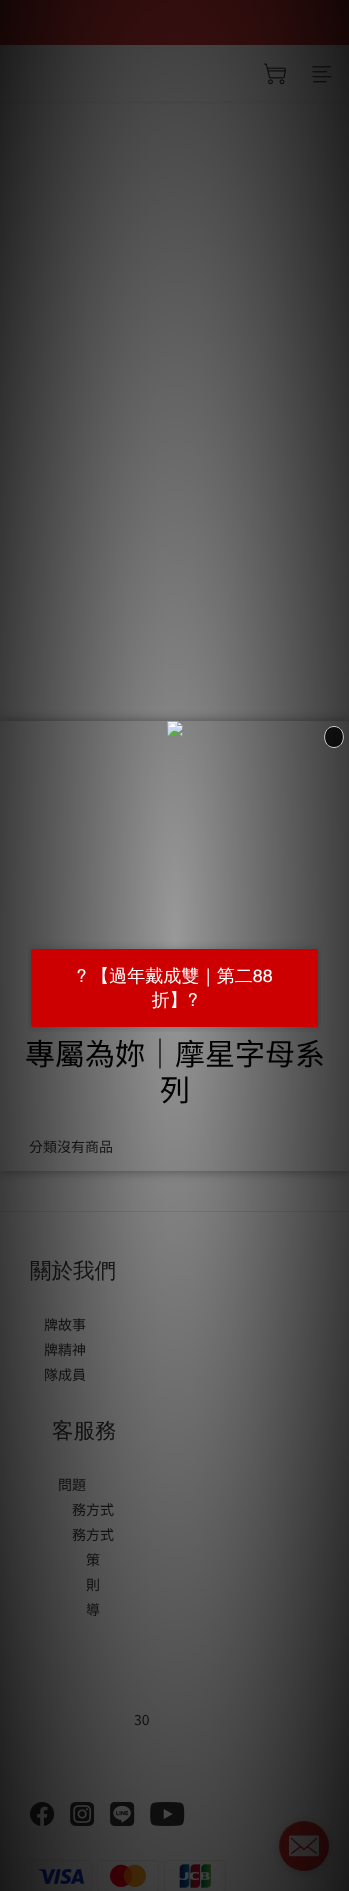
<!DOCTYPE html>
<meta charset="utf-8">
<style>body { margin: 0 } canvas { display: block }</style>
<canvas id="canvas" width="349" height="1891"></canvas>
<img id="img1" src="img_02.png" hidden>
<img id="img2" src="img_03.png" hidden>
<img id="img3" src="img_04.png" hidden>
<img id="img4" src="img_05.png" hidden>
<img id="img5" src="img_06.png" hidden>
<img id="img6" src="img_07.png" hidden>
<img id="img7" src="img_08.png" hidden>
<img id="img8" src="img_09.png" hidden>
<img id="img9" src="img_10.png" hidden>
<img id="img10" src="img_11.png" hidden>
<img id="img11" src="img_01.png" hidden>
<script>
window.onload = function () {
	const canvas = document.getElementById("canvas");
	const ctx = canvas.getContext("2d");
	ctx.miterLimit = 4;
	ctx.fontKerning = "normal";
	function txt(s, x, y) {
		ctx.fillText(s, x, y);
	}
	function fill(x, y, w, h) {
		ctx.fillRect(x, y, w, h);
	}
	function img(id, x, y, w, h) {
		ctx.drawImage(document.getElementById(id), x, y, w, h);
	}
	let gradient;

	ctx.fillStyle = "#FFFFFF";
	fill(0, 0, 349, 1891);
	ctx.save();
	ctx.beginPath();
	ctx.rect(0, 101, 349, 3);
	ctx.clip();
	ctx.fillStyle = "rgba(0, 0, 0, 0.06)";
	ctx.filter = "blur(3px)";
	ctx.beginPath();
	ctx.rect(0, 47, 349, 56);
	ctx.fill();
	ctx.filter = "none";
	ctx.restore();
	ctx.fillStyle = "#CA3737";
	fill(0, 0, 349, 45);
	img("img1", 264, 63, 22, 22);
	img("img2", 312, 66, 20, 17);
	ctx.fillStyle = "#E6E6E6";
	fill(0, 1211, 349, 1);
	img("img3", 30, 1802, 25, 24);
	img("img4", 70, 1802, 24, 24);
	img("img5", 110, 1802, 25, 24);
	img("img6", 150, 1802, 35, 24);
	img("img7", 30, 1860, 62, 31);
	img("img8", 97, 1860, 62, 31);
	img("img9", 164, 1860, 62, 31);
	ctx.fillStyle = "rgba(128, 128, 128, 0.4)";
	ctx.filter = "blur(5.5px)";
	ctx.beginPath();
	ctx.roundRect(279, 1823, 50, 50, 25);
	ctx.fill();
	ctx.filter = "none";
	ctx.fillStyle = "#DB2C2C";
	ctx.beginPath();
	ctx.arc(304, 1846, 25, 0, Math.PI * 2);
	ctx.fill();
	ctx.fillStyle = "rgba(255, 255, 255, 0.15)";
	ctx.beginPath();
	ctx.moveTo(305, 1822);
	ctx.bezierCurveTo(310, 1822, 314, 1823, 318, 1825);
	ctx.bezierCurveTo(294, 1810, 267, 1840, 284, 1862);
	ctx.bezierCurveTo(275, 1847, 282, 1822, 305, 1822);
	ctx.closePath();
	ctx.fill();
	img("img10", 289, 1835, 30, 22);
	ctx.font = "30px Noto Sans TC";
	ctx.fillStyle = "#000000";
	txt("專屬為妳｜摩星字母系", 25, 1065);
	txt("列", 160, 1101);
	ctx.font = "14px Noto Sans TC";
	ctx.fillStyle = "#333333";
	txt("分類沒有商品", 29, 1152);
	ctx.font = "500 21.5px WenQuanYi Zen Hei";
	txt("關於我們", 30, 1278);
	ctx.font = "14px Noto Sans TC";
	txt("牌故事", 44, 1330);
	txt("牌精神", 44, 1355);
	txt("隊成員", 44, 1380);
	ctx.font = "500 21.5px WenQuanYi Zen Hei";
	txt("客服務", 52, 1438);
	ctx.font = "14px Noto Sans TC";
	txt("問題", 58, 1490);
	txt("務方式", 72, 1515);
	txt("務方式", 72, 1540);
	txt("策", 86, 1565);
	txt("則", 86, 1590);
	txt("導", 86, 1615);
	txt("30", 134, 1725);
	gradient = ctx.createRadialGradient(175, 174.77, 0, 175, 174.77, 247);
	gradient.addColorStop(0, "rgba(0, 0, 0, 0.4)");
	gradient.addColorStop(1, "rgba(0, 0, 0, 0.9)");
	ctx.fillStyle = gradient;
	ctx.beginPath();
	ctx.rect(0, 0, 349, 1891);
	ctx.save();
	ctx.clip();
	ctx.scale(1, 1337 / 247);
	ctx.fillRect(0, 0, 349, 350);
	ctx.restore();
	ctx.save();
	ctx.beginPath();
	ctx.moveTo(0, 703);
	ctx.lineTo(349, 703);
	ctx.lineTo(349, 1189);
	ctx.lineTo(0, 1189);
	ctx.closePath();
	ctx.moveTo(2, 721);
	ctx.lineTo(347, 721);
	ctx.bezierCurveTo(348, 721, 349, 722, 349, 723);
	ctx.lineTo(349, 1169);
	ctx.bezierCurveTo(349, 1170, 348, 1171, 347, 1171);
	ctx.lineTo(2, 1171);
	ctx.bezierCurveTo(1, 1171, 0, 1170, 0, 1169);
	ctx.lineTo(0, 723);
	ctx.bezierCurveTo(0, 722, 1, 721, 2, 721);
	ctx.closePath();
	ctx.clip("evenodd");
	ctx.fillStyle = "rgba(0, 0, 0, 0.4)";
	ctx.filter = "blur(5.5px)";
	ctx.beginPath();
	ctx.roundRect(0, 721, 349, 450, 2);
	ctx.fill();
	ctx.filter = "none";
	ctx.restore();
	ctx.fillStyle = "rgba(0, 0, 0, 0.8)";
	ctx.beginPath();
	ctx.ellipse(334, 737, 10, 11, 0, 0, Math.PI * 2);
	ctx.fill();
	ctx.beginPath();
	ctx.moveTo(334, 726.5);
	ctx.bezierCurveTo(346.5, 726.5, 346.5, 747.5, 334, 747.5);
	ctx.bezierCurveTo(321.5, 747.5, 321.5, 726.5, 334, 726.5);
	ctx.closePath();
	ctx.strokeStyle = "rgba(255, 255, 255, 0.8)";
	ctx.stroke();
	img("img11", 28, 721, 293, 311);
};
</script>
